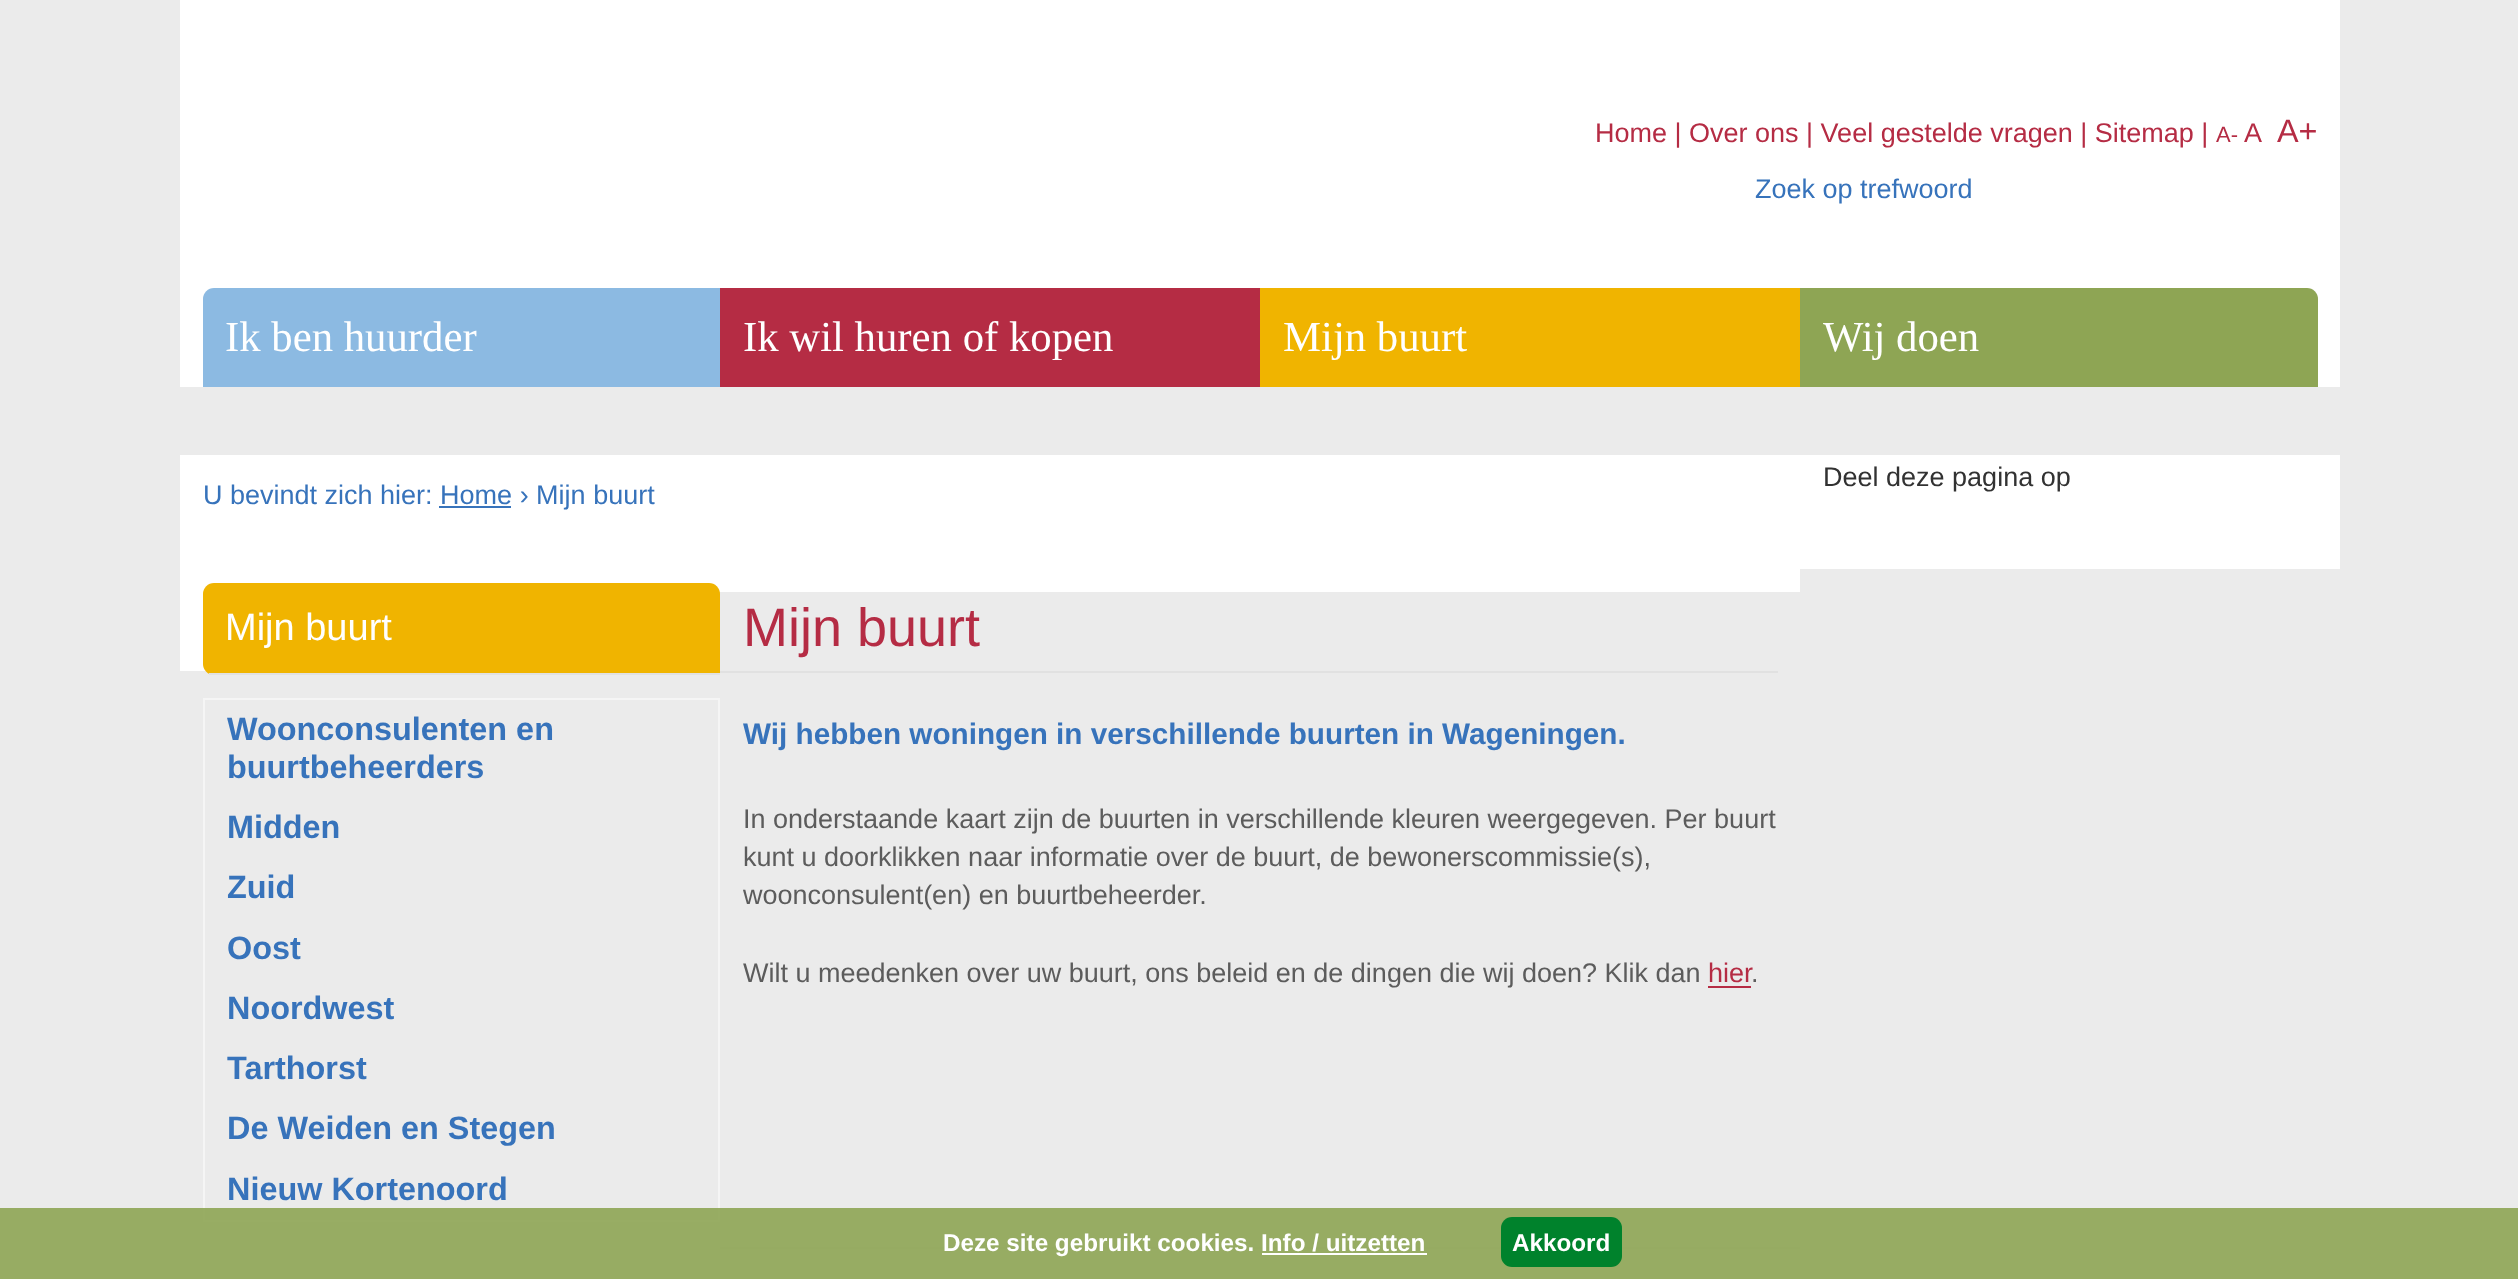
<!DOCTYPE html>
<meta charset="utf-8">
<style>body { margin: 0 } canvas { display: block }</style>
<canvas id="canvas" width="2518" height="1279"></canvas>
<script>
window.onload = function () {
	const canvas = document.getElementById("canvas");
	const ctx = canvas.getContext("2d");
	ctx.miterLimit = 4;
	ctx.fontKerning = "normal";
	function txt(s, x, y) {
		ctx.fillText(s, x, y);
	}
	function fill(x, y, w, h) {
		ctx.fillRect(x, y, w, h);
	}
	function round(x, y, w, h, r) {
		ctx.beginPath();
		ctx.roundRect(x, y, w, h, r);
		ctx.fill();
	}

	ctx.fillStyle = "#EBEBEB";
	fill(0, 0, 2518, 1279);
	ctx.fillStyle = "#FFFFFF";
	fill(180, 0, 2160, 387);
	ctx.fillStyle = "#8CBAE2";
	ctx.beginPath();
	ctx.roundRect(203, 288, 517, 99, [11, 0, 0, 0]);
	ctx.fill();
	ctx.fillStyle = "#B52C44";
	fill(720, 288, 540, 99);
	ctx.fillStyle = "#F0B400";
	fill(1260, 288, 540, 99);
	ctx.fillStyle = "#8EA554";
	ctx.beginPath();
	ctx.roundRect(1800, 288, 518, 99, [0, 11, 0, 0]);
	ctx.fill();
	ctx.fillStyle = "#FFFFFF";
	fill(1800, 455, 540, 114);
	fill(180, 455, 1620, 137);
	ctx.fillStyle = "#3773BB";
	fill(439, 506, 72, 2);
	ctx.fillStyle = "#FFFFFF";
	fill(180, 592, 540, 79);
	ctx.fillStyle = "#F0B400";
	ctx.beginPath();
	ctx.roundRect(203, 583, 517, 92, [11, 11, 0, 11]);
	ctx.fill();
	ctx.fillStyle = "#E1E1E1";
	fill(209, 673, 511, 2);
	ctx.strokeStyle = "#F5F5F5";
	ctx.lineWidth = 2;
	ctx.strokeRect(204, 699, 515, 522);
	fill(720, 671, 1058, 2);
	ctx.fillStyle = "#B52C44";
	fill(1708, 986, 43, 2);
	ctx.fillStyle = "#E1E1E1";
	fill(720, 1247, 1080, 2);
	ctx.fillStyle = "rgba(142, 165, 84, 0.9)";
	fill(0, 1208, 2518, 71);
	ctx.fillStyle = "#00822C";
	round(1501, 1217, 121, 50, 11);
	ctx.fillStyle = "#FFFFFF";
	fill(1262, 1253, 165, 2);
	ctx.font = "27px Liberation Sans";
	ctx.fillStyle = "#B52C44";
	txt("Home | Over ons | Veel gestelde vragen | Sitemap |", 1595, 142);
	ctx.font = "22px Liberation Sans";
	txt("A-", 2216, 142);
	ctx.font = "27px Liberation Sans";
	txt("A", 2244, 142);
	ctx.font = "32.4px Liberation Sans";
	txt("A+", 2277, 142);
	ctx.font = "27px Liberation Sans";
	ctx.fillStyle = "#3773BB";
	txt("Zoek op trefwoord", 1755, 198);
	ctx.font = "42.75px Liberation Serif";
	ctx.fillStyle = "#FFFFFF";
	txt("Ik ben huurder", 225, 351);
	txt("Ik wil huren of kopen", 743, 351);
	txt("Mijn buurt", 1283, 351);
	txt("Wij doen", 1823, 351);
	ctx.font = "27px Liberation Sans";
	ctx.fillStyle = "#323232";
	txt("Deel deze pagina op", 1823, 486);
	ctx.fillStyle = "#3773BB";
	txt("U bevindt zich hier: Home › Mijn buurt", 203, 504);
	ctx.font = "38px Liberation Sans";
	ctx.fillStyle = "#FFFFFF";
	txt("Mijn buurt", 225, 640);
	ctx.font = "bold 32.4px Liberation Sans";
	ctx.fillStyle = "#3773BB";
	txt("Woonconsulenten en", 227, 740);
	txt("buurtbeheerders", 227, 778);
	txt("Midden", 227, 838);
	txt("Zuid", 227, 898);
	txt("Oost", 227, 959);
	txt("Noordwest", 227, 1019);
	txt("Tarthorst", 227, 1079);
	txt("De Weiden en Stegen", 227, 1139);
	txt("Nieuw Kortenoord", 227, 1200);
	ctx.font = "54px Liberation Sans";
	ctx.fillStyle = "#B52C44";
	txt("Mijn buurt", 743, 646);
	ctx.font = "bold 29.7px Liberation Sans";
	ctx.fillStyle = "#3773BB";
	txt("Wij hebben woningen in verschillende buurten in Wageningen.", 743, 744);
	ctx.font = "27px Liberation Sans";
	ctx.fillStyle = "#5C5C5C";
	txt("In onderstaande kaart zijn de buurten in verschillende kleuren weergegeven. Per buurt", 743, 828);
	txt("kunt u doorklikken naar informatie over de buurt, de bewonerscommissie(s),", 743, 866);
	txt("woonconsulent(en) en buurtbeheerder.", 743, 904);
	txt("Wilt u meedenken over uw buurt, ons beleid en de dingen die wij doen? Klik dan", 743, 982);
	ctx.fillStyle = "#B52C44";
	txt("hier", 1708, 982);
	ctx.fillStyle = "#5C5C5C";
	txt(".", 1751, 982);
	ctx.font = "bold 24.25px Liberation Sans";
	ctx.fillStyle = "#FFFFFF";
	txt("Deze site gebruikt cookies. Info / uitzetten", 943, 1251);
	txt("Akkoord", 1512, 1251);
};
</script>
